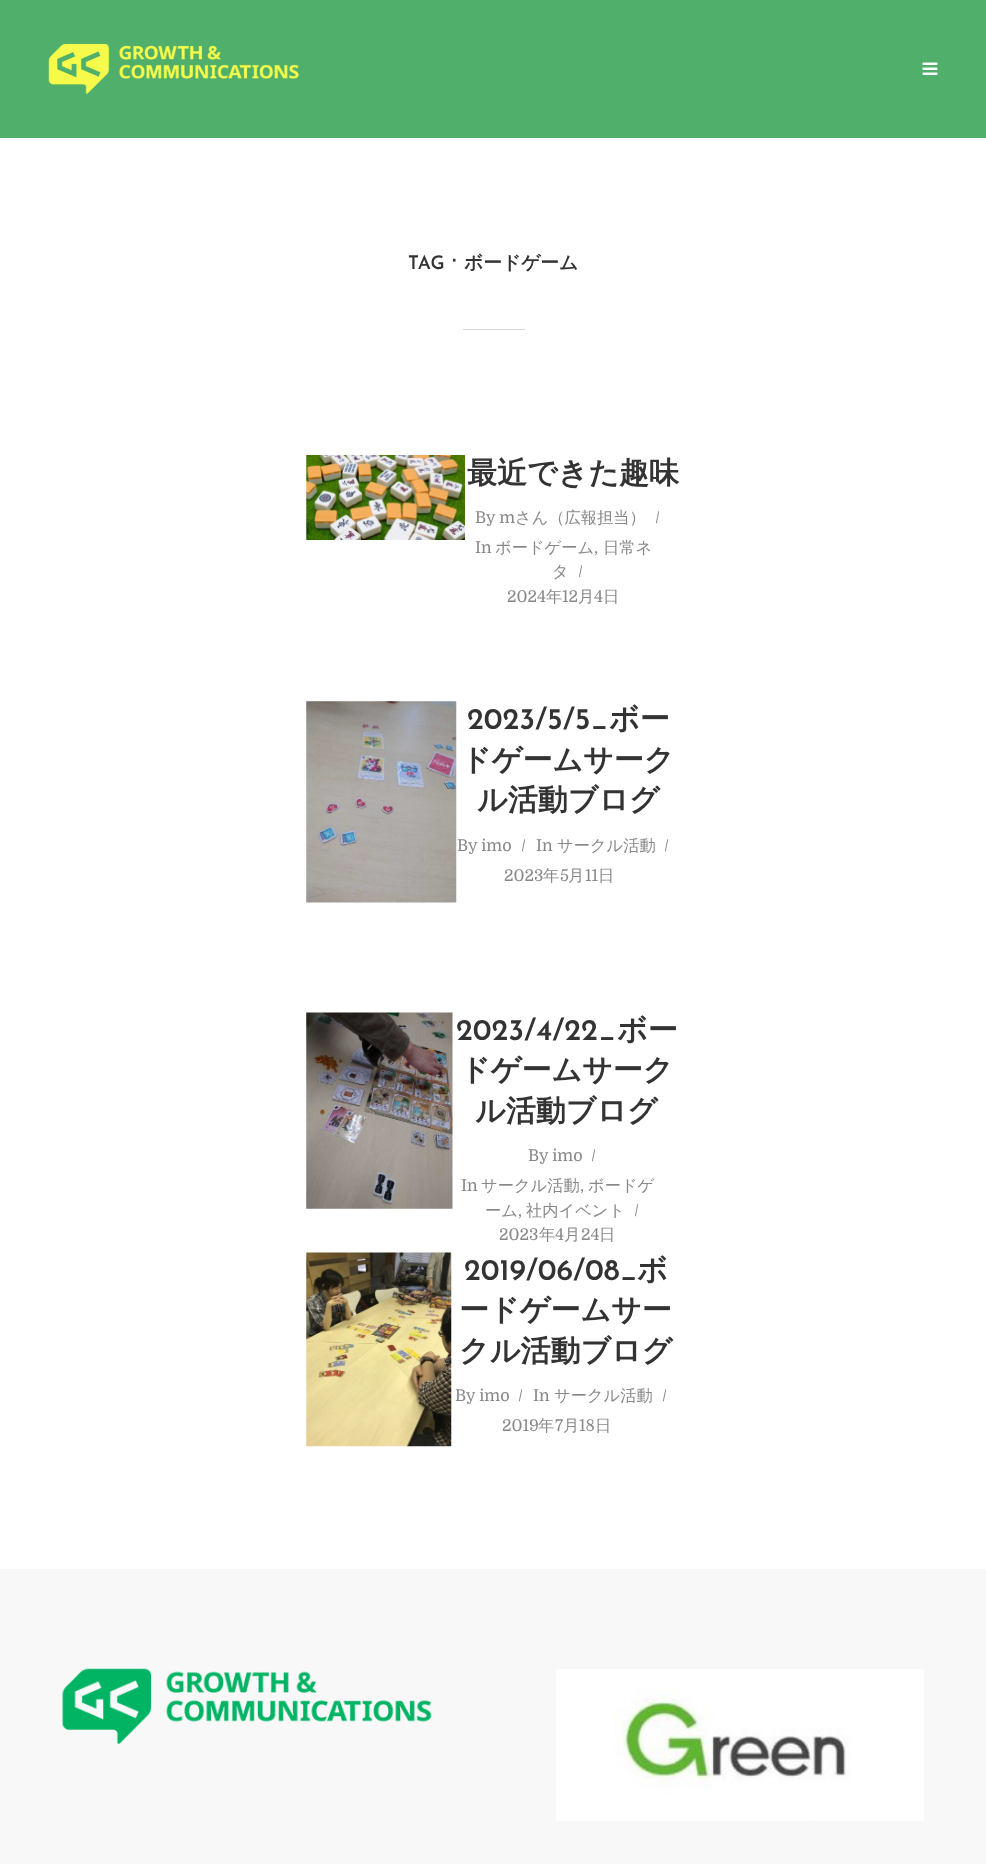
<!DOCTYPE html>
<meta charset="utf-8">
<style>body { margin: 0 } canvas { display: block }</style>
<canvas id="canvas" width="986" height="1864"></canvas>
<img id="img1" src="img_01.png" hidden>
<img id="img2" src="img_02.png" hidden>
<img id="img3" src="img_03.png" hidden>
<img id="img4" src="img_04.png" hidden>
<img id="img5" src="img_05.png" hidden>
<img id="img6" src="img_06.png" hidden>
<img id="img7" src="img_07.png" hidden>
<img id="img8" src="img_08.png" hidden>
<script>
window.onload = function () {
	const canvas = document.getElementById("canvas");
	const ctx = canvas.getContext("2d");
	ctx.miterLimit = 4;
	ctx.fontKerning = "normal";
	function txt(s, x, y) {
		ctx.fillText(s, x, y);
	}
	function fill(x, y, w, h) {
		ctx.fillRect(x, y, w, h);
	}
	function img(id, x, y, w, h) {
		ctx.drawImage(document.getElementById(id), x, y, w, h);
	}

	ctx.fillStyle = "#FFFFFF";
	fill(0, 0, 986, 1864);
	ctx.fillStyle = "#50B06B";
	fill(0, 0, 986, 138);
	img("img1", 48, 43, 251, 51);
	img("img2", 922, 62, 16, 13);
	ctx.fillStyle = "#D6D6D6";
	fill(463, 329, 62, 1);
	img("img3", 306, 455, 159, 85);
	img("img4", 306, 701, 151, 202);
	img("img5", 306, 1012, 147, 197);
	img("img6", 306, 1252, 146, 195);
	ctx.fillStyle = "#F8F8F8";
	fill(0, 1569, 986, 295);
	img("img7", 62, 1668, 370, 76);
	img("img8", 556, 1669, 368, 152);
	ctx.font = "600 18.75px Josefin Sans";
	ctx.fillStyle = "#333333";
	txt("TAG", 408, 269);
	ctx.font = "bold 18.75px DejaVu Sans";
	txt("⋅", 451, 267);
	ctx.font = "bold 18.75px WenQuanYi Zen Hei";
	txt("ボードゲーム", 464, 269);
	ctx.font = "bold 30px WenQuanYi Zen Hei";
	txt("最近できた趣味", 467, 483);
	ctx.font = "16.25px Domine";
	ctx.fillStyle = "#888888";
	txt("By m", 475, 523);
	ctx.font = "500 16.25px WenQuanYi Zen Hei";
	txt("さん（広報担当）", 515, 523);
	ctx.font = "16.25px Domine";
	txt("/", 655, 523);
	txt("In", 475, 553);
	ctx.font = "500 16.25px WenQuanYi Zen Hei";
	txt("ボードゲーム", 495, 553);
	txt("日常ネ", 603, 553);
	ctx.font = "16.25px Domine";
	txt(",", 594, 553);
	ctx.font = "500 16.25px WenQuanYi Zen Hei";
	txt("タ", 552, 577);
	ctx.font = "16.25px Domine";
	txt("/", 578, 577);
	txt("2024", 507, 602);
	ctx.font = "500 16.25px WenQuanYi Zen Hei";
	txt("年", 546, 602);
	ctx.font = "16.25px Domine";
	txt("12", 562, 602);
	ctx.font = "500 16.25px WenQuanYi Zen Hei";
	txt("月", 578, 602);
	ctx.font = "16.25px Domine";
	txt("4", 594, 602);
	ctx.font = "500 16.25px WenQuanYi Zen Hei";
	txt("日", 603, 602);
	ctx.font = "600 30px Josefin Sans";
	ctx.fillStyle = "#333333";
	txt("2023/5/5_", 467, 729);
	ctx.font = "bold 30px WenQuanYi Zen Hei";
	txt("ボー", 609, 729);
	txt("ドゲームサーク", 461, 770);
	txt("ル活動ブログ", 477, 810);
	ctx.font = "16.25px Domine";
	ctx.fillStyle = "#888888";
	txt("By imo", 457, 851);
	txt("/", 521, 851);
	txt("In", 536, 851);
	ctx.font = "500 16.25px WenQuanYi Zen Hei";
	txt("サークル活動", 557, 851);
	ctx.font = "16.25px Domine";
	txt("/", 664, 851);
	txt("2023", 504, 881);
	ctx.font = "500 16.25px WenQuanYi Zen Hei";
	txt("年", 543, 881);
	ctx.font = "16.25px Domine";
	txt("5", 560, 881);
	ctx.font = "500 16.25px WenQuanYi Zen Hei";
	txt("月", 568, 881);
	ctx.font = "16.25px Domine";
	txt("11", 585, 881);
	ctx.font = "500 16.25px WenQuanYi Zen Hei";
	txt("日", 598, 881);
	ctx.font = "600 30px Josefin Sans";
	ctx.fillStyle = "#333333";
	txt("2023/4/22_", 456, 1040);
	ctx.font = "bold 30px WenQuanYi Zen Hei";
	txt("ボー", 617, 1040);
	txt("ドゲームサーク", 460, 1080);
	txt("ル活動ブログ", 475, 1121);
	ctx.font = "16.25px Domine";
	ctx.fillStyle = "#888888";
	txt("By imo", 528, 1161);
	txt("/", 591, 1161);
	txt("In", 461, 1191);
	ctx.font = "500 16.25px WenQuanYi Zen Hei";
	txt("サークル活動", 481, 1191);
	txt("ボードゲ", 588, 1191);
	ctx.font = "16.25px Domine";
	txt(",", 580, 1191);
	ctx.font = "500 16.25px WenQuanYi Zen Hei";
	txt("ーム", 485, 1216);
	ctx.font = "16.25px Domine";
	txt(",", 518, 1216);
	ctx.font = "500 16.25px WenQuanYi Zen Hei";
	txt("社内イベント", 526, 1216);
	ctx.font = "16.25px Domine";
	txt("/", 634, 1216);
	txt("2023", 499, 1240);
	ctx.font = "500 16.25px WenQuanYi Zen Hei";
	txt("年", 539, 1240);
	ctx.font = "16.25px Domine";
	txt("4", 555, 1240);
	ctx.font = "500 16.25px WenQuanYi Zen Hei";
	txt("月", 564, 1240);
	ctx.font = "16.25px Domine";
	txt("24", 581, 1240);
	ctx.font = "500 16.25px WenQuanYi Zen Hei";
	txt("日", 599, 1240);
	ctx.font = "600 30px Josefin Sans";
	ctx.fillStyle = "#333333";
	txt("2019/06/08_", 464, 1280);
	ctx.font = "bold 30px WenQuanYi Zen Hei";
	txt("ボ", 637, 1280);
	txt("ードゲームサー", 459, 1320);
	txt("クル活動ブログ", 459, 1361);
	ctx.font = "16.25px Domine";
	ctx.fillStyle = "#888888";
	txt("By imo", 455, 1401);
	txt("/", 518, 1401);
	txt("In", 533, 1401);
	ctx.font = "500 16.25px WenQuanYi Zen Hei";
	txt("サークル活動", 554, 1401);
	ctx.font = "16.25px Domine";
	txt("/", 662, 1401);
	txt("2019", 502, 1431);
	ctx.font = "500 16.25px WenQuanYi Zen Hei";
	txt("年", 538, 1431);
	ctx.font = "16.25px Domine";
	txt("7", 555, 1431);
	ctx.font = "500 16.25px WenQuanYi Zen Hei";
	txt("月", 563, 1431);
	ctx.font = "16.25px Domine";
	txt("18", 579, 1431);
	ctx.font = "500 16.25px WenQuanYi Zen Hei";
	txt("日", 595, 1431);
};
</script>
